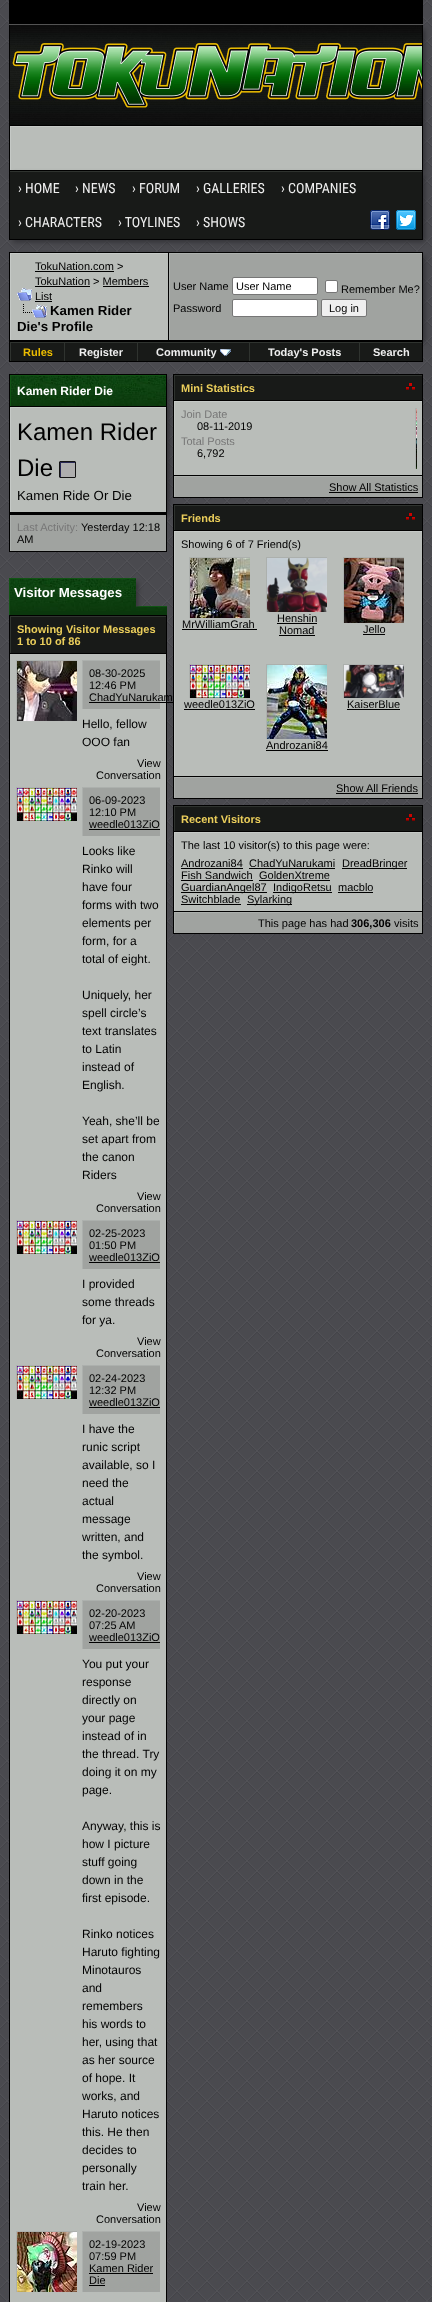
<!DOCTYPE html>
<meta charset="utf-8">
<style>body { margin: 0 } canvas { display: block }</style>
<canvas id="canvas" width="432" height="2302"></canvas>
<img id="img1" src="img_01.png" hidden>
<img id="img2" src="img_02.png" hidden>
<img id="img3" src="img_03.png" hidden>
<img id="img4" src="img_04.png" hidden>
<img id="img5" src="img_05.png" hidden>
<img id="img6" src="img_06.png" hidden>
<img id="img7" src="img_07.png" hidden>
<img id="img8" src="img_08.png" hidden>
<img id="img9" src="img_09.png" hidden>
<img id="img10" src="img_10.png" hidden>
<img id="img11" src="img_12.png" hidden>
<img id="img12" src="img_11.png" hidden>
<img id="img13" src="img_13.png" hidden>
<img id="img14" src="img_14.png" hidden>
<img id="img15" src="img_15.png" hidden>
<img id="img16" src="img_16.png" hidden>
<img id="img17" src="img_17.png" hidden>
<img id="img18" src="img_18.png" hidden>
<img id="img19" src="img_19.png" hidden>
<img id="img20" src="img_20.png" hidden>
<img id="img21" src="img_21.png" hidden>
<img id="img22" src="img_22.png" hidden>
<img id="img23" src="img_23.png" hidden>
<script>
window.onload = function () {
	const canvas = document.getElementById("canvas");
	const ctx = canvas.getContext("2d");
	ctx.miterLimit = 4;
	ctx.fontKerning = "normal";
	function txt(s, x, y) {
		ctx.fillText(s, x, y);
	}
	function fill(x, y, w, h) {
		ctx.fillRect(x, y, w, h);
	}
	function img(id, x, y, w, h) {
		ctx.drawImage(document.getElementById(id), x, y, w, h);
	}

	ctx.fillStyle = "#FFFFFF";
	fill(0, 0, 432, 2302);
	img("img1", 0, 0, 432, 2302);
	ctx.fillStyle = "#000000";
	fill(9, 0, 414, 24);
	ctx.fillStyle = "#545454";
	fill(9, 24, 414, 1);
	ctx.fillStyle = "#323236";
	ctx.filter = "blur(2.5px)";
	ctx.beginPath();
	ctx.rect(13, 29, 412, 143);
	ctx.fill();
	ctx.filter = "none";
	img("img2", 10, 25, 412, 100);
	ctx.fillStyle = "#000000";
	fill(422, 25, 1, 145);
	fill(9, 25, 1, 145);
	img("img3", 11, 41, 411, 68);
	ctx.fillStyle = "#B9BDB9";
	fill(11, 127, 411, 43);
	ctx.save();
	ctx.beginPath();
	ctx.rect(10, 126, 412, 44);
	ctx.clip();
	ctx.fillStyle = "#C5C9C6";
	ctx.beginPath();
	ctx.moveTo(-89, 27);
	ctx.lineTo(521, 27);
	ctx.lineTo(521, 269);
	ctx.lineTo(-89, 269);
	ctx.closePath();
	ctx.moveTo(11, 127);
	ctx.lineTo(423, 127);
	ctx.lineTo(423, 171);
	ctx.lineTo(11, 171);
	ctx.closePath();
	ctx.fill("evenodd");
	ctx.restore();
	ctx.fillStyle = "#000000";
	fill(10, 125, 412, 1);
	ctx.fillStyle = "#323236";
	ctx.filter = "blur(2.5px)";
	ctx.beginPath();
	ctx.rect(13, 174, 412, 68);
	ctx.fill();
	ctx.filter = "none";
	ctx.fillStyle = "#181A18";
	fill(10, 172, 412, 67);
	ctx.fillStyle = "#2F332F";
	fill(10, 171, 412, 1);
	ctx.strokeStyle = "#000000";
	ctx.strokeRect(9.5, 170.5, 413, 69);
	img("img4", 370, 210, 20, 20);
	img("img5", 396, 210, 20, 20);
	ctx.fillStyle = "#323236";
	ctx.filter = "blur(2.5px)";
	ctx.beginPath();
	ctx.rect(13, 256, 412, 87);
	ctx.fill();
	ctx.filter = "none";
	ctx.fillStyle = "#000000";
	fill(9, 252, 414, 110);
	ctx.fillStyle = "#B9BDB9";
	fill(11, 254, 157, 86);
	ctx.fillStyle = "#C5C9C6";
	fill(10, 253, 158, 1);
	fill(10, 253, 1, 87);
	img("img6", 17, 288, 15, 13);
	ctx.fillStyle = "#000000";
	fill(35, 271, 79, 1);
	fill(35, 286, 55, 1);
	fill(103, 286, 46, 1);
	fill(35, 301, 17, 1);
	img("img7", 23, 304, 24, 14);
	ctx.fillStyle = "#A0A3A0";
	fill(170, 254, 252, 86);
	ctx.fillStyle = "#ACB0AD";
	fill(169, 253, 253, 1);
	fill(169, 253, 1, 87);
	ctx.fillStyle = "#FFFFFF";
	ctx.beginPath();
	ctx.roundRect(232.5, 277.5, 85, 17, 1.5);
	ctx.fill();
	ctx.strokeStyle = "#767676";
	ctx.stroke();
	ctx.beginPath();
	ctx.roundRect(325.5, 280.5, 12, 12, 1.5);
	ctx.fill();
	ctx.stroke();
	ctx.beginPath();
	ctx.roundRect(232.5, 299.5, 85, 17, 1.5);
	ctx.fill();
	ctx.stroke();
	ctx.fillStyle = "#EFEFEF";
	ctx.beginPath();
	ctx.roundRect(321.5, 299.5, 45, 17, 1.5);
	ctx.fill();
	ctx.stroke();
	ctx.fillStyle = "#181A18";
	fill(11, 343, 53, 18);
	ctx.fillStyle = "#2F332F";
	fill(10, 342, 412, 1);
	fill(10, 342, 1, 19);
	ctx.fillStyle = "#181A18";
	fill(65, 343, 72, 18);
	ctx.fillStyle = "#2F332F";
	fill(64, 342, 1, 19);
	ctx.fillStyle = "#181A18";
	fill(138, 343, 111, 18);
	ctx.fillStyle = "#2F332F";
	fill(137, 342, 1, 19);
	img("img8", 220, 349, 11, 7);
	ctx.fillStyle = "#181A18";
	fill(250, 343, 109, 18);
	ctx.fillStyle = "#2F332F";
	fill(249, 342, 1, 19);
	ctx.fillStyle = "#181A18";
	fill(360, 343, 62, 18);
	ctx.fillStyle = "#2F332F";
	fill(359, 342, 1, 19);
	ctx.fillStyle = "#323236";
	ctx.filter = "blur(2.5px)";
	ctx.beginPath();
	ctx.rect(13, 378, 156, 137);
	ctx.fill();
	ctx.filter = "none";
	ctx.fillStyle = "#000000";
	fill(9, 374, 158, 178);
	img("img9", 11, 376, 155, 30);
	ctx.fillStyle = "#115414";
	fill(10, 375, 156, 1);
	fill(10, 375, 1, 31);
	ctx.fillStyle = "#B9BDB9";
	fill(11, 408, 155, 104);
	ctx.fillStyle = "#C5C9C6";
	fill(10, 407, 156, 1);
	fill(10, 407, 1, 105);
	img("img10", 59, 461, 17, 17);
	ctx.fillStyle = "#A0A3A0";
	fill(11, 515, 155, 36);
	ctx.fillStyle = "#ACB0AD";
	fill(10, 515, 1, 36);
	ctx.fillStyle = "#0B370D";
	fill(10, 611, 157, 4);
	img("img11", 10, 607, 157, 4);
	ctx.fillStyle = "#115414";
	fill(136, 606, 31, 1);
	fill(9, 606, 1, 9);
	ctx.fillStyle = "#000000";
	fill(9, 615, 158, 1687);
	ctx.fillStyle = "#181A18";
	fill(11, 617, 155, 36);
	ctx.fillStyle = "#2F332F";
	fill(10, 616, 156, 1);
	fill(10, 616, 1, 37);
	ctx.save();
	ctx.beginPath();
	ctx.rect(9, 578, 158, 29);
	ctx.clip();
	ctx.fillStyle = "#323236";
	ctx.filter = "blur(2.5px)";
	ctx.beginPath();
	ctx.rect(13, 582, 125, 27);
	ctx.fill();
	ctx.filter = "none";
	ctx.restore();
	img("img12", 10, 579, 126, 28);
	ctx.fillStyle = "#115414";
	fill(9, 578, 127, 1);
	fill(9, 578, 1, 29);
	ctx.fillStyle = "#B9BDB9";
	fill(10, 654, 156, 1648);
	ctx.fillStyle = "#ACB0AD";
	fill(16, 660, 61, 1);
	fill(16, 660, 1, 61);
	img("img13", 17, 661, 60, 60);
	ctx.fillStyle = "#A0A3A0";
	fill(83, 661, 77, 48);
	ctx.fillStyle = "#ACB0AD";
	fill(82, 660, 78, 1);
	fill(82, 660, 1, 49);
	ctx.fillStyle = "#000000";
	fill(89, 702, 86, 1);
	ctx.fillStyle = "#ACB0AD";
	fill(16, 787, 61, 1);
	fill(16, 787, 1, 34);
	img("img14", 17, 788, 60, 33);
	ctx.fillStyle = "#A0A3A0";
	fill(83, 788, 77, 48);
	ctx.fillStyle = "#ACB0AD";
	fill(82, 787, 78, 1);
	fill(82, 787, 1, 49);
	ctx.fillStyle = "#000000";
	fill(89, 829, 71, 1);
	ctx.fillStyle = "#ACB0AD";
	fill(16, 1220, 61, 1);
	fill(16, 1220, 1, 34);
	img("img15", 17, 1221, 60, 33);
	ctx.fillStyle = "#A0A3A0";
	fill(83, 1221, 77, 48);
	ctx.fillStyle = "#ACB0AD";
	fill(82, 1220, 78, 1);
	fill(82, 1220, 1, 49);
	ctx.fillStyle = "#000000";
	fill(89, 1262, 71, 1);
	ctx.fillStyle = "#ACB0AD";
	fill(16, 1365, 61, 1);
	fill(16, 1365, 1, 34);
	img("img15", 17, 1366, 60, 33);
	ctx.fillStyle = "#A0A3A0";
	fill(83, 1366, 77, 48);
	ctx.fillStyle = "#ACB0AD";
	fill(82, 1365, 78, 1);
	fill(82, 1365, 1, 49);
	ctx.fillStyle = "#000000";
	fill(89, 1407, 71, 1);
	ctx.fillStyle = "#ACB0AD";
	fill(16, 1600, 61, 1);
	fill(16, 1600, 1, 34);
	img("img15", 17, 1601, 60, 33);
	ctx.fillStyle = "#A0A3A0";
	fill(83, 1601, 77, 48);
	ctx.fillStyle = "#ACB0AD";
	fill(82, 1600, 78, 1);
	fill(82, 1600, 1, 49);
	ctx.fillStyle = "#000000";
	fill(89, 1642, 71, 1);
	ctx.fillStyle = "#ACB0AD";
	fill(16, 2231, 61, 1);
	fill(16, 2231, 1, 61);
	img("img16", 17, 2232, 60, 60);
	ctx.fillStyle = "#A0A3A0";
	fill(83, 2232, 77, 60);
	ctx.fillStyle = "#ACB0AD";
	fill(82, 2231, 78, 1);
	fill(82, 2231, 1, 61);
	ctx.fillStyle = "#000000";
	fill(89, 2273, 64, 1);
	fill(89, 2285, 16, 1);
	fill(173, 374, 250, 124);
	ctx.fillStyle = "#181A18";
	fill(175, 376, 247, 24);
	ctx.fillStyle = "#2F332F";
	fill(174, 375, 248, 1);
	fill(174, 375, 1, 25);
	img("img17", 406, 383, 9, 7);
	ctx.fillStyle = "#B9BDB9";
	fill(175, 402, 247, 73);
	ctx.fillStyle = "#C5C9C6";
	fill(174, 401, 248, 1);
	fill(174, 401, 1, 74);
	ctx.fillStyle = "#ACB0AD";
	fill(415, 408, 2, 1);
	fill(415, 408, 1, 61);
	img("img18", 416, 409, 1, 60);
	ctx.fillStyle = "#A0A3A0";
	fill(175, 477, 247, 20);
	ctx.fillStyle = "#ACB0AD";
	fill(174, 476, 248, 1);
	fill(174, 476, 1, 21);
	ctx.fillStyle = "#000000";
	fill(329, 492, 89, 1);
	fill(173, 504, 250, 295);
	ctx.fillStyle = "#181A18";
	fill(175, 506, 247, 24);
	ctx.fillStyle = "#2F332F";
	fill(174, 505, 248, 1);
	fill(174, 505, 1, 25);
	img("img17", 406, 513, 9, 7);
	ctx.fillStyle = "#B9BDB9";
	fill(175, 532, 247, 244);
	ctx.fillStyle = "#C5C9C6";
	fill(174, 531, 248, 1);
	fill(174, 531, 1, 245);
	ctx.fillStyle = "#ACB0AD";
	fill(189, 557, 61, 1);
	fill(189, 557, 1, 61);
	img("img19", 190, 558, 60, 60);
	ctx.fillStyle = "#000000";
	fill(182, 629, 75, 1);
	ctx.fillStyle = "#ACB0AD";
	fill(266, 557, 61, 1);
	fill(266, 557, 1, 55);
	img("img20", 267, 558, 60, 54);
	ctx.fillStyle = "#000000";
	fill(277, 623, 40, 1);
	fill(279, 635, 36, 1);
	ctx.fillStyle = "#ACB0AD";
	fill(343, 557, 61, 1);
	fill(343, 557, 1, 66);
	img("img21", 344, 558, 60, 65);
	ctx.fillStyle = "#000000";
	fill(363, 634, 22, 1);
	ctx.fillStyle = "#ACB0AD";
	fill(189, 664, 61, 1);
	fill(189, 664, 1, 34);
	img("img15", 190, 665, 60, 33);
	ctx.fillStyle = "#000000";
	fill(184, 709, 71, 1);
	ctx.fillStyle = "#ACB0AD";
	fill(343, 664, 61, 1);
	fill(343, 664, 1, 34);
	img("img22", 344, 665, 60, 33);
	ctx.fillStyle = "#000000";
	fill(347, 709, 53, 1);
	ctx.fillStyle = "#ACB0AD";
	fill(266, 664, 61, 1);
	fill(266, 664, 1, 75);
	img("img23", 267, 665, 60, 74);
	ctx.fillStyle = "#000000";
	fill(266, 750, 62, 1);
	ctx.fillStyle = "#A0A3A0";
	fill(175, 778, 247, 20);
	ctx.fillStyle = "#ACB0AD";
	fill(174, 777, 248, 1);
	fill(174, 777, 1, 21);
	ctx.fillStyle = "#000000";
	fill(336, 793, 82, 1);
	fill(173, 805, 250, 129);
	ctx.fillStyle = "#181A18";
	fill(175, 807, 247, 24);
	ctx.fillStyle = "#2F332F";
	fill(174, 806, 248, 1);
	fill(174, 806, 1, 25);
	img("img17", 406, 814, 9, 7);
	ctx.fillStyle = "#B9BDB9";
	fill(175, 833, 247, 78);
	ctx.fillStyle = "#C5C9C6";
	fill(174, 832, 248, 1);
	fill(174, 832, 1, 79);
	ctx.fillStyle = "#000000";
	fill(181, 868, 62, 1);
	fill(249, 868, 86, 1);
	fill(342, 868, 65, 1);
	fill(181, 880, 72, 1);
	fill(259, 880, 71, 1);
	fill(181, 892, 86, 1);
	fill(273, 892, 59, 1);
	fill(338, 892, 35, 1);
	fill(181, 904, 60, 1);
	fill(247, 904, 45, 1);
	ctx.fillStyle = "#A0A3A0";
	fill(175, 913, 247, 20);
	ctx.fillStyle = "#ACB0AD";
	fill(174, 912, 248, 1);
	fill(174, 912, 1, 21);
	ctx.font = "14px Roboto Condensed";
	ctx.fillStyle = "#EEEEEE";
	txt("› HOME", 18, 193);
	txt("› NEWS", 75, 193);
	txt("› FORUM", 132, 193);
	txt("› GALLERIES", 196, 193);
	txt("› COMPANIES", 281, 193);
	txt("› CHARACTERS", 18, 227);
	txt("› TOYLINES", 118, 227);
	txt("› SHOWS", 196, 227);
	ctx.font = "11px Liberation Sans";
	ctx.fillStyle = "#000000";
	txt("TokuNation.com >", 35, 270);
	txt("TokuNation", 35, 285);
	txt("> Members", 93, 285);
	txt("List", 35, 300);
	ctx.font = "bold 13.25px Liberation Sans";
	txt("Kamen Rider", 50, 315);
	txt("Die's Profile", 17, 331);
	ctx.font = "11px Liberation Sans";
	txt("User Name", 173, 290);
	txt("User Name", 236, 290);
	txt("Remember Me?", 341, 293);
	txt("Password", 173, 312);
	txt("Log in", 329, 312);
	ctx.font = "bold 11px Liberation Sans";
	ctx.fillStyle = "#EBBC00";
	txt("Rules", 23, 356);
	ctx.fillStyle = "#EEEEEE";
	txt("Register", 79, 356);
	txt("Community", 156, 356);
	txt("Today's Posts", 268, 356);
	txt("Search", 373, 356);
	ctx.font = "bold 12px Liberation Sans";
	ctx.fillStyle = "#FFFFFF";
	txt("Kamen Rider Die", 17, 395);
	ctx.font = "24px Liberation Sans";
	ctx.fillStyle = "#000000";
	txt("Kamen Rider", 17, 440);
	txt("Die", 17, 476);
	ctx.font = "13.25px Liberation Sans";
	txt("Kamen Ride Or Die", 17, 500);
	ctx.font = "11px Liberation Sans";
	ctx.fillStyle = "#777777";
	txt("Last Activity:", 17, 531);
	ctx.fillStyle = "#000000";
	txt("Yesterday 12:18", 81, 531);
	txt("AM", 17, 543);
	ctx.font = "bold 13.25px Liberation Sans";
	ctx.fillStyle = "#FFFFFF";
	txt("Visitor Messages", 14, 597);
	ctx.font = "bold 11px Liberation Sans";
	ctx.fillStyle = "#EBCE5B";
	txt("Showing Visitor Messages", 17, 633);
	txt("1 to 10 of 86", 17, 645);
	ctx.font = "11px Liberation Sans";
	ctx.fillStyle = "#000000";
	txt("08-30-2025", 89, 677);
	txt("12:46 PM", 89, 689);
	txt("ChadYuNarukam", 89, 701);
	ctx.font = "12px Liberation Sans";
	txt("Hello, fellow", 82, 728);
	txt("OOO fan", 82, 746);
	ctx.font = "11px Liberation Sans";
	txt("View", 137, 767);
	txt("Conversation", 96, 779);
	txt("06-09-2023", 89, 804);
	txt("12:10 PM", 89, 816);
	txt("weedle013ZiO", 89, 828);
	ctx.font = "12px Liberation Sans";
	txt("Looks like", 82, 855);
	txt("Rinko will", 82, 873);
	txt("have four", 82, 891);
	txt("forms with two", 82, 909);
	txt("elements per", 82, 927);
	txt("form, for a", 82, 945);
	txt("total of eight.", 82, 963);
	txt("Uniquely, her", 82, 999);
	txt("spell circle’s", 82, 1017);
	txt("text translates", 82, 1035);
	txt("to Latin", 82, 1053);
	txt("instead of", 82, 1071);
	txt("English.", 82, 1089);
	txt("Yeah, she’ll be", 82, 1125);
	txt("set apart from", 82, 1143);
	txt("the canon", 82, 1161);
	txt("Riders", 82, 1179);
	ctx.font = "11px Liberation Sans";
	txt("View", 137, 1200);
	txt("Conversation", 96, 1212);
	txt("02-25-2023", 89, 1237);
	txt("01:50 PM", 89, 1249);
	txt("weedle013ZiO", 89, 1261);
	ctx.font = "12px Liberation Sans";
	txt("I provided", 82, 1288);
	txt("some threads", 82, 1306);
	txt("for ya.", 82, 1324);
	ctx.font = "11px Liberation Sans";
	txt("View", 137, 1345);
	txt("Conversation", 96, 1357);
	txt("02-24-2023", 89, 1382);
	txt("12:32 PM", 89, 1394);
	txt("weedle013ZiO", 89, 1406);
	ctx.font = "12px Liberation Sans";
	txt("I have the", 82, 1433);
	txt("runic script", 82, 1451);
	txt("available, so I", 82, 1469);
	txt("need the", 82, 1487);
	txt("actual", 82, 1505);
	txt("message", 82, 1523);
	txt("written, and", 82, 1541);
	txt("the symbol.", 82, 1559);
	ctx.font = "11px Liberation Sans";
	txt("View", 137, 1580);
	txt("Conversation", 96, 1592);
	txt("02-20-2023", 89, 1617);
	txt("07:25 AM", 89, 1629);
	txt("weedle013ZiO", 89, 1641);
	ctx.font = "12px Liberation Sans";
	txt("You put your", 82, 1668);
	txt("response", 82, 1686);
	txt("directly on", 82, 1704);
	txt("your page", 82, 1722);
	txt("instead of in", 82, 1740);
	txt("the thread. Try", 82, 1758);
	txt("doing it on my", 82, 1776);
	txt("page.", 82, 1794);
	txt("Anyway, this is", 82, 1830);
	txt("how I picture", 82, 1848);
	txt("stuff going", 82, 1866);
	txt("down in the", 82, 1884);
	txt("first episode.", 82, 1902);
	txt("Rinko notices", 82, 1938);
	txt("Haruto fighting", 82, 1956);
	txt("Minotauros", 82, 1974);
	txt("and", 82, 1992);
	txt("remembers", 82, 2010);
	txt("his words to", 82, 2028);
	txt("her, using that", 82, 2046);
	txt("as her source", 82, 2064);
	txt("of hope. It", 82, 2082);
	txt("works, and", 82, 2100);
	txt("Haruto notices", 82, 2118);
	txt("this. He then", 82, 2136);
	txt("decides to", 82, 2154);
	txt("personally", 82, 2172);
	txt("train her.", 82, 2190);
	ctx.font = "11px Liberation Sans";
	txt("View", 137, 2211);
	txt("Conversation", 96, 2223);
	txt("02-19-2023", 89, 2248);
	txt("07:59 PM", 89, 2260);
	txt("Kamen Rider", 89, 2272);
	txt("Die", 89, 2284);
	ctx.font = "bold 11px Liberation Sans";
	ctx.fillStyle = "#EBCE5B";
	txt("Mini Statistics", 181, 392);
	ctx.font = "11px Liberation Sans";
	ctx.fillStyle = "#777777";
	txt("Join Date", 181, 418);
	ctx.fillStyle = "#000000";
	txt("08-11-2019", 197, 430);
	ctx.fillStyle = "#777777";
	txt("Total Posts", 181, 445);
	ctx.fillStyle = "#000000";
	txt("6,792", 197, 457);
	txt("Show All Statistics", 329, 491);
	ctx.font = "bold 11px Liberation Sans";
	ctx.fillStyle = "#EBCE5B";
	txt("Friends", 181, 522);
	ctx.font = "11px Liberation Sans";
	ctx.fillStyle = "#000000";
	txt("Showing 6 of 7 Friend(s)", 181, 548);
	txt("MrWilliamGrah", 182, 628);
	txt("Henshin", 277, 622);
	txt("Nomad", 279, 634);
	txt("Jello", 363, 633);
	txt("weedle013ZiO", 184, 708);
	txt("KaiserBlue", 347, 708);
	txt("Androzani84", 266, 749);
	txt("Show All Friends", 336, 792);
	ctx.font = "bold 11px Liberation Sans";
	ctx.fillStyle = "#EBCE5B";
	txt("Recent Visitors", 181, 823);
	ctx.font = "11px Liberation Sans";
	ctx.fillStyle = "#000000";
	txt("The last 10 visitor(s) to this page were:", 181, 849);
	txt("Androzani84", 181, 867);
	txt("ChadYuNarukami", 249, 867);
	txt("DreadBringer", 342, 867);
	txt("Fish Sandwich", 181, 879);
	txt("GoldenXtreme", 259, 879);
	txt("GuardianAngel87", 181, 891);
	txt("IndigoRetsu", 273, 891);
	txt("macblo", 338, 891);
	txt("Switchblade", 181, 903);
	txt("Sylarking", 247, 903);
	txt("This page has had", 258, 927);
	ctx.font = "bold 11px Liberation Sans";
	txt("306,306", 351, 927);
	ctx.font = "11px Liberation Sans";
	txt("visits", 394, 927);
};
</script>
